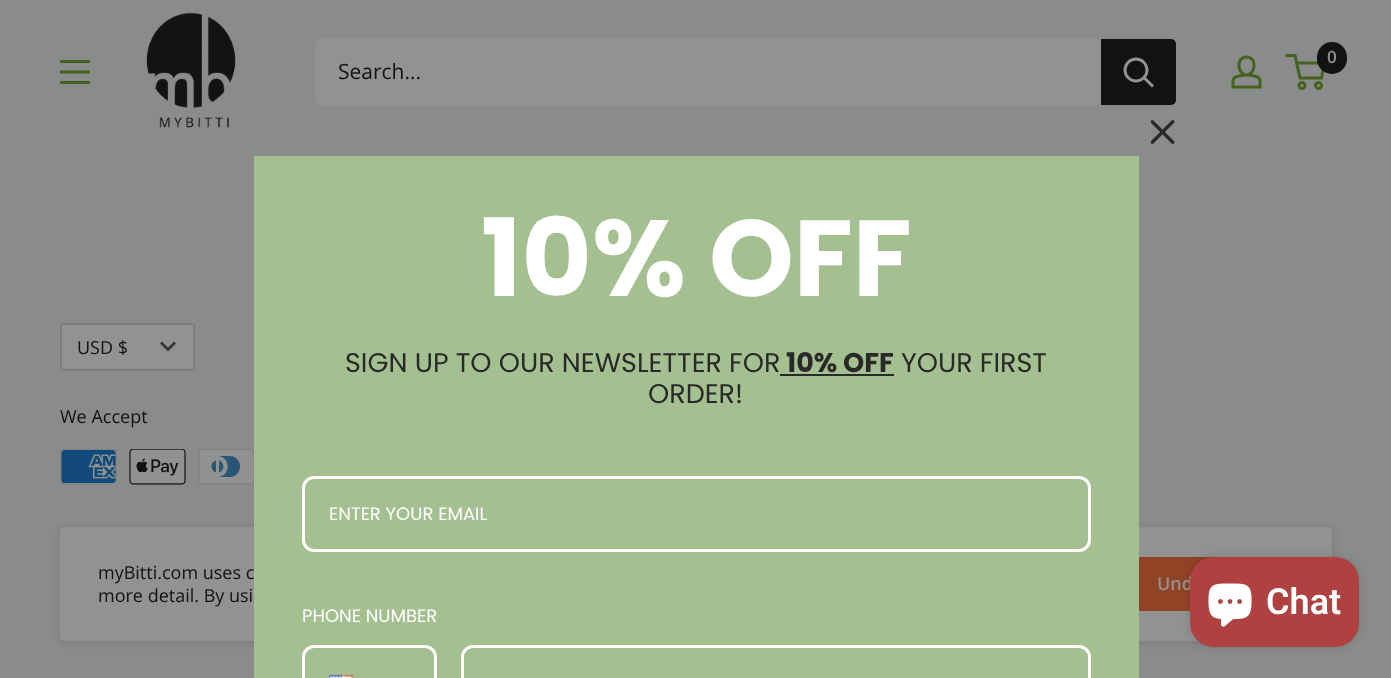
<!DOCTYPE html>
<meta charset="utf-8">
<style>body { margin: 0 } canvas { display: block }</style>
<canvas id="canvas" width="1391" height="678"></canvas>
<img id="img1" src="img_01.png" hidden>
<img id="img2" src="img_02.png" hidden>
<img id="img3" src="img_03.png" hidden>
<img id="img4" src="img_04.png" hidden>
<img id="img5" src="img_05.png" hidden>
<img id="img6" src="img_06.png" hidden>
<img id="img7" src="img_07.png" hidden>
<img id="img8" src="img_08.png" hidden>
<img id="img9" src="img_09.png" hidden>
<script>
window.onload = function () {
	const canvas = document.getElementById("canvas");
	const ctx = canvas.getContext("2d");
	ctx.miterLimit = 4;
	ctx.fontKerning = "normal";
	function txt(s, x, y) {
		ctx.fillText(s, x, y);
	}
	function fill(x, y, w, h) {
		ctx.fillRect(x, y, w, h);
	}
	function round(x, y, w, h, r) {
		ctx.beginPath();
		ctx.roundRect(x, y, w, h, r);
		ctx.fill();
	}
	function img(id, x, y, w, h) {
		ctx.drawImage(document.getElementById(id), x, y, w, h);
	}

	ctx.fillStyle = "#8A8B8B";
	fill(0, 0, 1391, 678);
	img("img1", 146, 12, 90, 116);
	img("img2", 1231, 55, 31, 34);
	ctx.beginPath();
	ctx.arc(1302, 85.5, 3, 0, Math.PI * 2);
	ctx.strokeStyle = "#45611F";
	ctx.lineWidth = 3;
	ctx.stroke();
	ctx.beginPath();
	ctx.arc(1318.5, 85.5, 3, 0, Math.PI * 2);
	ctx.stroke();
	ctx.beginPath();
	ctx.moveTo(1296.5, 63);
	ctx.lineTo(1324, 63);
	ctx.lineTo(1321.5, 78);
	ctx.lineTo(1300, 78);
	ctx.lineTo(1295, 55.5);
	ctx.lineTo(1285.5, 55.5);
	ctx.stroke();
	ctx.fillStyle = "#111212";
	round(1317, 42, 30, 32, 15);
	img("img3", 60, 60, 30, 24);
	ctx.fillStyle = "#919292";
	round(315, 39, 861, 66, 5);
	ctx.fillStyle = "#111212";
	ctx.beginPath();
	ctx.roundRect(1101, 39, 75, 66, [0, 5, 5, 0]);
	ctx.fill();
	ctx.beginPath();
	ctx.moveTo(1152, 85.5);
	ctx.lineTo(1144.5, 78);
	ctx.strokeStyle = "#919292";
	ctx.lineCap = "square";
	ctx.stroke();
	ctx.beginPath();
	ctx.arc(1136, 70, 11, 0, Math.PI * 2);
	ctx.stroke();
	img("img4", 1151, 120, 24, 24);
	ctx.fillStyle = "rgba(17, 18, 18, 0.1)";
	ctx.filter = "blur(3px)";
	ctx.beginPath();
	ctx.roundRect(59, 527, 1275, 117, 6);
	ctx.fill();
	ctx.filter = "none";
	ctx.fillStyle = "#919292";
	round(60, 527, 1272, 114, 5);
	ctx.fillStyle = "#A5C090";
	fill(254, 156, 885, 522);
	ctx.fillStyle = "#292929";
	fill(780, 374, 114, 2);
	ctx.beginPath();
	ctx.roundRect(303.5, 477.5, 786, 73, 10.5);
	ctx.strokeStyle = "#FFFFFF";
	ctx.stroke();
	ctx.beginPath();
	ctx.roundRect(303.5, 646.5, 132, 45, 10.5);
	ctx.stroke();
	img("img5", 329, 674, 24, 4);
	ctx.beginPath();
	ctx.roundRect(462.5, 646.5, 627, 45, 10.5);
	ctx.stroke();
	ctx.fillStyle = "#919292";
	round(60, 323, 135, 48, 3);
	ctx.fillStyle = "#8D8D8D";
	ctx.beginPath();
	ctx.moveTo(62, 366);
	ctx.bezierCurveTo(62, 367, 62, 369, 63, 369);
	ctx.lineTo(193, 369);
	ctx.bezierCurveTo(194, 369, 194, 367, 194, 366);
	ctx.bezierCurveTo(194, 367, 193, 368, 192, 368);
	ctx.lineTo(63, 368);
	ctx.bezierCurveTo(62, 368, 62, 367, 62, 366);
	ctx.closePath();
	ctx.fill();
	ctx.beginPath();
	ctx.roundRect(61, 324, 133, 46, 2);
	ctx.strokeStyle = "#7F7D7A";
	ctx.lineWidth = 2;
	ctx.stroke();
	ctx.beginPath();
	ctx.moveTo(174, 343.5);
	ctx.lineTo(168, 349.5);
	ctx.lineTo(162, 343.5);
	ctx.strokeStyle = "#383939";
	ctx.lineWidth = 3;
	ctx.stroke();
	img("img6", 60, 449, 57, 36);
	img("img7", 129, 449, 57, 36);
	img("img8", 198, 449, 56, 36);
	ctx.fillStyle = "#914326";
	fill(1139, 557, 75, 54);
	ctx.fillStyle = "rgba(0, 0, 0, 0.15)";
	ctx.filter = "blur(4px)";
	ctx.beginPath();
	ctx.roundRect(1190, 557, 169, 90, 24);
	ctx.fill();
	ctx.filter = "none";
	ctx.font = "600 17px Open Sans";
	ctx.fillStyle = "#919292";
	txt("0", 1327, 63);
	ctx.font = "21px Open Sans";
	ctx.fillStyle = "#111212";
	txt("Search...", 338, 79);
	ctx.font = "bold 108px Poppins";
	ctx.fillStyle = "#FFFFFF";
	txt("10% OFF", 481, 296);
	ctx.font = "27px Poppins";
	ctx.fillStyle = "#292929";
	txt("SIGN UP TO OUR NEWSLETTER FOR", 345, 372);
	ctx.font = "bold 27px Poppins";
	txt("10% OFF", 786, 372);
	ctx.font = "27px Poppins";
	txt("YOUR FIRST", 901, 372);
	txt("ORDER!", 648, 403);
	ctx.font = "18px Poppins";
	ctx.fillStyle = "#FFFFFF";
	txt("ENTER YOUR EMAIL", 329, 520);
	txt("PHONE NUMBER", 302, 622);
	ctx.font = "18px Open Sans";
	ctx.fillStyle = "#111212";
	txt("USD $", 77, 354);
	txt("We Accept", 60, 423);
	txt("myBitti.com uses c", 98, 579);
	txt("more detail. By usi", 98, 602);
	ctx.font = "600 18px Open Sans";
	ctx.fillStyle = "#919292";
	txt("Und", 1157, 590);
	ctx.fillStyle = "#AF4141";
	round(1190, 557, 169, 90, 24);
	img("img9", 1208, 583, 44, 44);
	ctx.font = "600 36px Roboto";
	ctx.fillStyle = "#FFFFFF";
	txt("Chat", 1266, 614);
};
</script>
